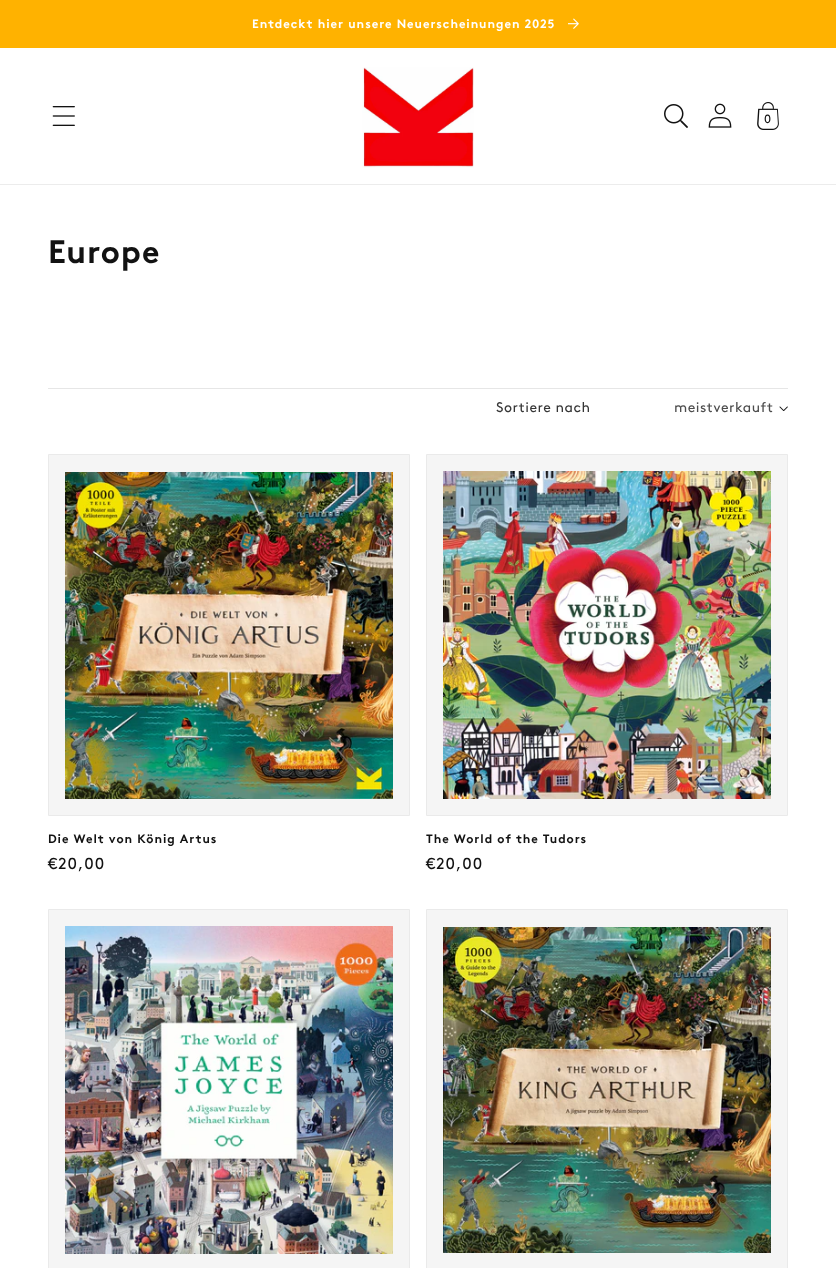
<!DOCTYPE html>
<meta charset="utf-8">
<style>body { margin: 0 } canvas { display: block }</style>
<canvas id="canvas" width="836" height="1268"></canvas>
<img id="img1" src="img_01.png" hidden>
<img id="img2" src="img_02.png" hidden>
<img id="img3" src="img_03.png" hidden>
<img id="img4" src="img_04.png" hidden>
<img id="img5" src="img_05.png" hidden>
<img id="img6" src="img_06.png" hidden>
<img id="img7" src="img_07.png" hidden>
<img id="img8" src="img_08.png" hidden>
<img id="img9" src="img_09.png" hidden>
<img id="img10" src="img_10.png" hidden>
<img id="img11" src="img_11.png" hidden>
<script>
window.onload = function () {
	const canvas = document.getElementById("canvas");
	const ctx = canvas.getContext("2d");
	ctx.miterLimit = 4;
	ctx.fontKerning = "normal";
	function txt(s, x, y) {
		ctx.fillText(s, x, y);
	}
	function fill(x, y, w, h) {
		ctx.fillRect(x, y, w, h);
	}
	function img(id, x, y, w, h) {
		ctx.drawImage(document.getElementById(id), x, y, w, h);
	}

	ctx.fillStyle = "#FFFFFF";
	fill(0, 0, 836, 1268);
	ctx.fillStyle = "#FFB200";
	fill(0, 0, 836, 48);
	img("img1", 568, 18, 11, 11);
	ctx.fillStyle = "#ECECEC";
	fill(0, 184, 836, 1);
	img("img2", 52, 106, 23, 20);
	img("img3", 362, 67, 112, 101);
	img("img4", 664, 104, 24, 24);
	img("img5", 708, 103, 24, 25);
	img("img6", 757, 102, 22, 28);
	ctx.fillStyle = "#E6E6E6";
	fill(48, 388, 740, 1);
	img("img7", 779, 406, 9, 5);
	ctx.fillStyle = "#F5F5F5";
	ctx.beginPath();
	ctx.rect(48.5, 454.5, 361, 361);
	ctx.fill();
	ctx.strokeStyle = "#EAEAEA";
	ctx.stroke();
	img("img8", 65, 472, 328, 327);
	ctx.beginPath();
	ctx.rect(426.5, 454.5, 361, 361);
	ctx.fill();
	ctx.stroke();
	img("img9", 443, 471, 328, 328);
	ctx.beginPath();
	ctx.rect(48.5, 909.5, 361, 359);
	ctx.fill();
	ctx.stroke();
	img("img10", 65, 926, 328, 328);
	ctx.beginPath();
	ctx.rect(426.5, 909.5, 361, 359);
	ctx.fill();
	ctx.stroke();
	img("img11", 443, 927, 328, 326);
	ctx.letterSpacing = "0.95px";
	ctx.font = "bold 12.2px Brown";
	ctx.fillStyle = "#FFFFFF";
	txt("Entdeckt hier unsere Neuerscheinungen 2025", 252, 28);
	ctx.font = "12px Brown";
	ctx.fillStyle = "#121212";
	txt("0", 764, 123);
	ctx.font = "bold 32.5px Brown";
	txt("Europe", 48, 263);
	ctx.letterSpacing = "0.5px";
	ctx.font = "14px Brown";
	ctx.fillStyle = "#363636";
	txt("Sortiere nach", 496, 412);
	ctx.fillStyle = "#4D4D4D";
	txt("meistverkauft", 674, 412);
	ctx.letterSpacing = "0.95px";
	ctx.font = "bold 12.2px Brown";
	ctx.fillStyle = "#121212";
	txt("Die Welt von König Artus", 48, 843);
	ctx.font = "16px Brown";
	txt("€20,00", 48, 869);
	ctx.font = "bold 12.2px Brown";
	txt("The World of the Tudors", 426, 843);
	ctx.font = "16px Brown";
	txt("€20,00", 426, 869);
};
</script>
